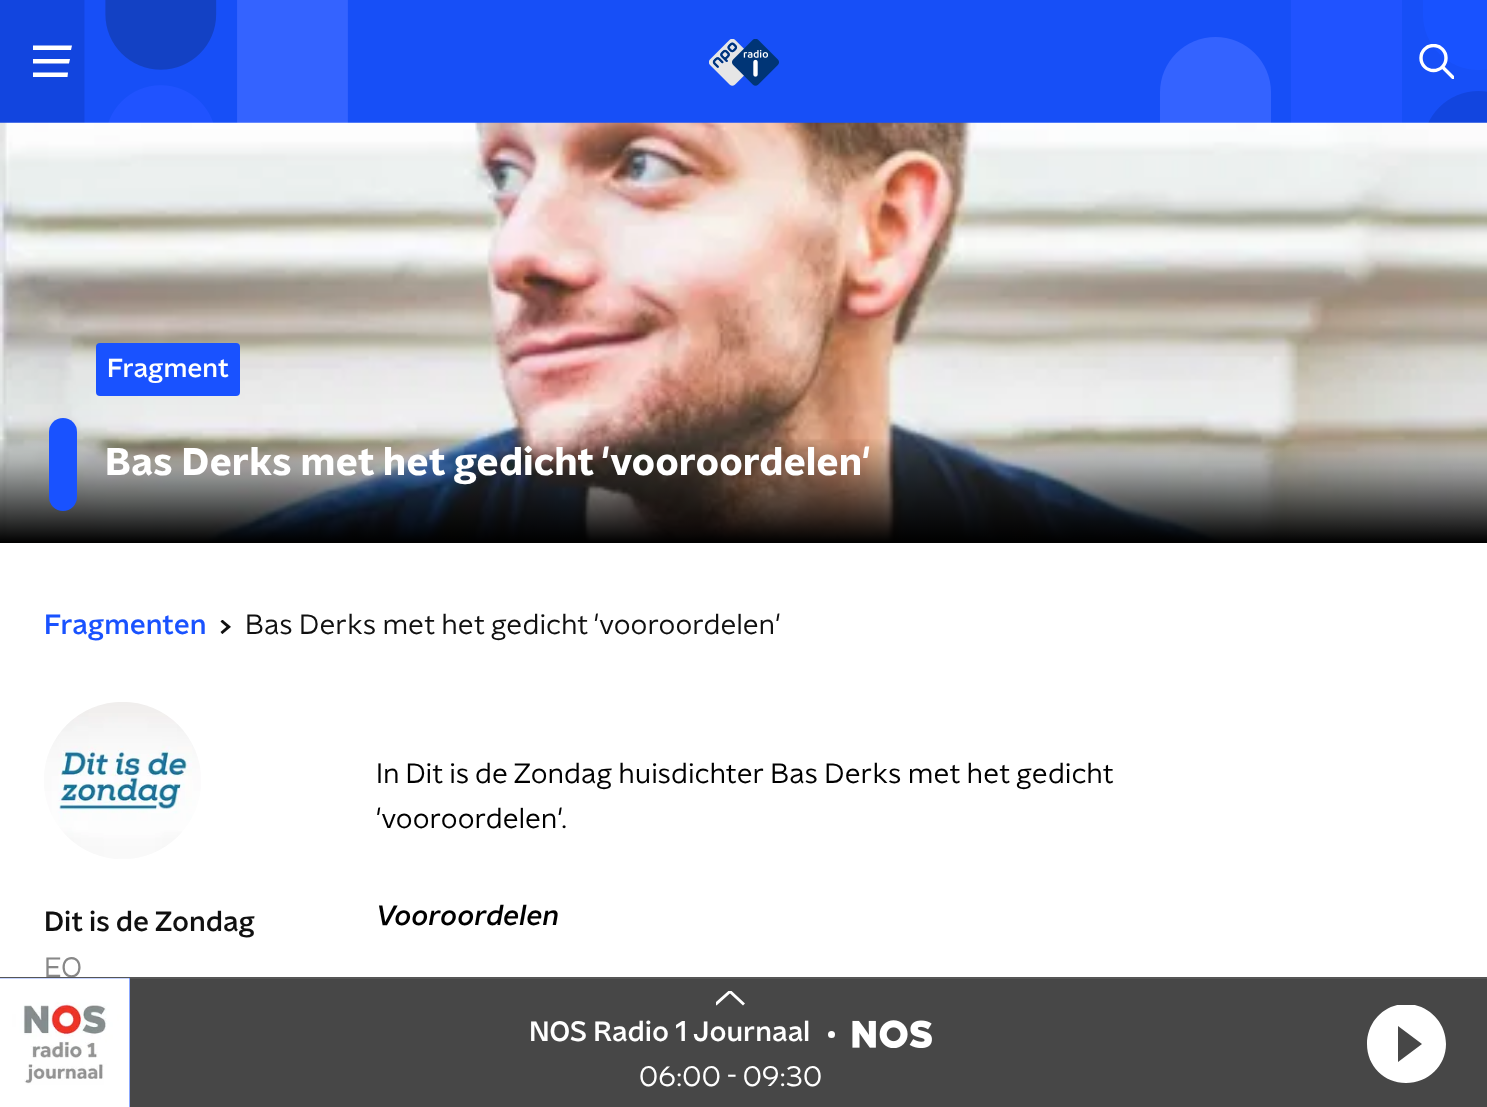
<!DOCTYPE html>
<meta charset="utf-8">
<style>body { margin: 0 } canvas { display: block }</style>
<canvas id="canvas" width="1487" height="1107"></canvas>
<img id="img1" src="img_01.png" hidden>
<img id="img2" src="img_02.png" hidden>
<img id="img3" src="img_03.png" hidden>
<img id="img4" src="img_04.png" hidden>
<img id="img5" src="img_05.png" hidden>
<img id="img6" src="img_06.png" hidden>
<img id="img7" src="img_07.png" hidden>
<script>
window.onload = function () {
	const canvas = document.getElementById("canvas");
	const ctx = canvas.getContext("2d");
	ctx.miterLimit = 4;
	ctx.fontKerning = "normal";
	function txt(s, x, y) {
		ctx.fillText(s, x, y);
	}
	function fill(x, y, w, h) {
		ctx.fillRect(x, y, w, h);
	}
	function round(x, y, w, h, r) {
		ctx.beginPath();
		ctx.roundRect(x, y, w, h, r);
		ctx.fill();
	}
	function img(id, x, y, w, h) {
		ctx.drawImage(document.getElementById(id), x, y, w, h);
	}
	let gradient;

	ctx.fillStyle = "#FFFFFF";
	fill(0, 0, 1487, 1107);
	img("img1", 0, 0, 1487, 123);
	ctx.beginPath();
	ctx.moveTo(33, 45.5);
	ctx.lineTo(72, 45.5);
	ctx.lineTo(71, 50);
	ctx.lineTo(33, 50);
	ctx.closePath();
	ctx.moveTo(33, 59);
	ctx.lineTo(70, 59);
	ctx.lineTo(69, 63.5);
	ctx.lineTo(33, 63.5);
	ctx.closePath();
	ctx.moveTo(33, 72.5);
	ctx.lineTo(68, 72.5);
	ctx.lineTo(67.5, 77);
	ctx.lineTo(33, 77);
	ctx.closePath();
	ctx.fill();
	img("img2", 709, 39, 70, 47);
	ctx.save();
	ctx.beginPath();
	ctx.rect(1419, 44, 35, 35);
	ctx.clip();
	ctx.beginPath();
	ctx.arc(1433.5, 58, 12.5, 0, Math.PI * 2);
	ctx.strokeStyle = "#FFFFFF";
	ctx.lineWidth = 3.4;
	ctx.stroke();
	ctx.beginPath();
	ctx.moveTo(1443, 67.5);
	ctx.lineTo(1453.5, 78);
	ctx.lineCap = "square";
	ctx.stroke();
	ctx.restore();
	img("img3", 0, 122, 1487, 420);
	gradient = ctx.createLinearGradient(744, 437, 744, 543);
	gradient.addColorStop(0, "rgba(0, 0, 0, 0)");
	gradient.addColorStop(1, "#000000");
	ctx.fillStyle = gradient;
	fill(0, 439, 1487, 104);
	ctx.fillStyle = "#1952FF";
	round(96, 343, 144, 53, 4);
	round(49, 418, 28, 93, 14);
	img("img4", 220, 620, 11, 14);
	img("img5", 44, 702, 157, 157);
	ctx.font = "500 26.25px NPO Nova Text";
	ctx.fillStyle = "#FFFFFF";
	txt("Fragment", 107, 377);
	ctx.font = "bold 38.5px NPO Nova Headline";
	txt("Bas Derks met het gedicht 'vooroordelen'", 105, 475);
	ctx.font = "500 28px NPO Nova Text";
	ctx.fillStyle = "#1952FF";
	txt("Fragmenten", 44, 634);
	ctx.font = "28px NPO Nova Text";
	ctx.fillStyle = "#101010";
	txt("Bas Derks met het gedicht 'vooroordelen'", 245, 634);
	ctx.fillStyle = "#000000";
	txt("In Dit is de Zondag huisdichter Bas Derks met het gedicht", 376, 783);
	txt("'vooroordelen'.", 376, 828);
	ctx.font = "italic 500 28px NPO Nova Text";
	txt("Vooroordelen", 376, 925);
	ctx.font = "500 28px NPO Nova Text";
	ctx.fillStyle = "#101010";
	txt("Dit is de Zondag", 44, 931);
	ctx.font = "28px NPO Nova Text";
	ctx.fillStyle = "#888888";
	txt("EO", 44, 977);
	ctx.fillStyle = "rgba(9, 9, 9, 0.75)";
	fill(0, 977, 1487, 130);
	ctx.fillStyle = "rgba(95, 95, 95, 0.65)";
	fill(0, 977, 1487, 2);
	ctx.fillStyle = "#1952FF";
	fill(0, 978, 130, 129);
	img("img6", 0, 978, 130, 129);
	ctx.save();
	ctx.beginPath();
	ctx.rect(716, 991, 31, 15);
	ctx.clip();
	ctx.beginPath();
	ctx.moveTo(744, 1004.5);
	ctx.lineTo(730, 991.5);
	ctx.lineTo(715.5, 1004.5);
	ctx.strokeStyle = "#FFFFFF";
	ctx.lineWidth = 2.9;
	ctx.stroke();
	ctx.restore();
	ctx.font = "500 28px NPO Nova Text";
	ctx.fillStyle = "#FFFFFF";
	txt("NOS Radio 1 Journaal", 529, 1041);
	ctx.beginPath();
	ctx.arc(831.5, 1034.5, 3.5, 0, Math.PI * 2);
	ctx.fill();
	img("img7", 852, 1020, 80, 28);
	ctx.font = "28px NPO Nova Text";
	txt("06:00 - 09:30", 639, 1086);
	ctx.save();
	ctx.beginPath();
	ctx.rect(1367, 1005, 79, 78);
	ctx.clip();
	ctx.beginPath();
	ctx.moveTo(1406, 1004);
	ctx.bezierCurveTo(1384, 1004, 1367, 1022, 1367, 1044);
	ctx.bezierCurveTo(1367, 1066, 1384, 1083, 1406, 1083);
	ctx.bezierCurveTo(1428, 1083, 1446, 1066, 1446, 1044);
	ctx.bezierCurveTo(1446, 1022, 1428, 1004, 1406, 1004);
	ctx.closePath();
	ctx.moveTo(1398, 1062);
	ctx.lineTo(1398, 1026);
	ctx.lineTo(1422, 1044);
	ctx.closePath();
	ctx.fill();
	ctx.restore();
};
</script>
